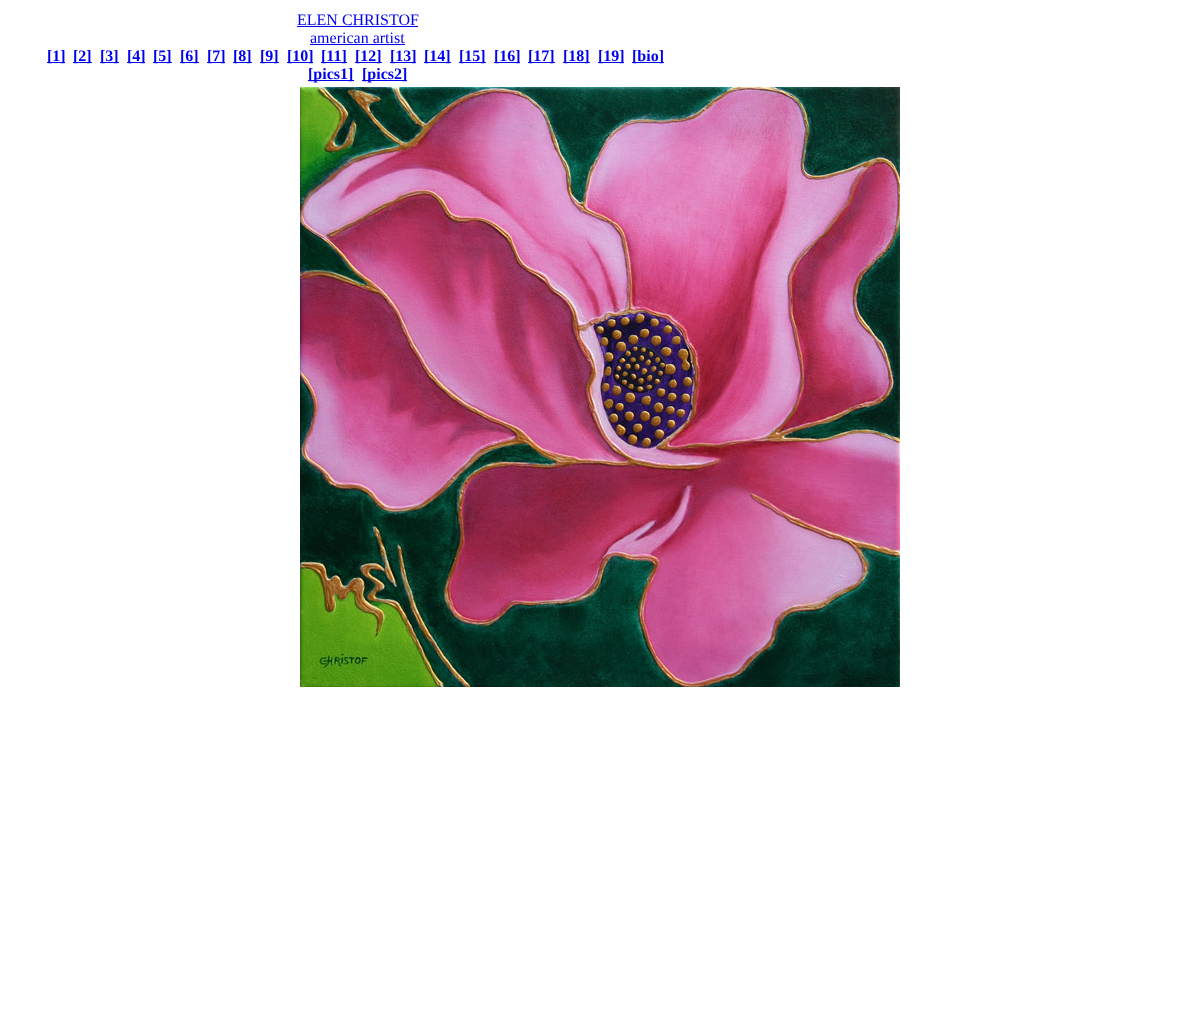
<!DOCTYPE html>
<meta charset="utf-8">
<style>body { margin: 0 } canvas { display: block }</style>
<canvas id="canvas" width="1200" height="1032"></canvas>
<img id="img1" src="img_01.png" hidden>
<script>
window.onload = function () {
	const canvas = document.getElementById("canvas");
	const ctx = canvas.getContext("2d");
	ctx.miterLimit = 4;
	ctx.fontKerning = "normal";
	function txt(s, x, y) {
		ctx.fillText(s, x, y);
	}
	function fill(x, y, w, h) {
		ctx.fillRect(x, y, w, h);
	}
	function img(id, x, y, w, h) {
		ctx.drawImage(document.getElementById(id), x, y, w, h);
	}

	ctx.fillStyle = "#FFFFFF";
	fill(0, 0, 1200, 1032);
	ctx.fillStyle = "#0000EE";
	fill(297, 26, 121, 1);
	fill(310, 44, 95, 1);
	fill(47, 62, 18, 1);
	fill(73, 62, 19, 1);
	fill(100, 62, 19, 1);
	fill(127, 62, 18, 1);
	fill(153, 62, 19, 1);
	fill(180, 62, 19, 1);
	fill(207, 62, 18, 1);
	fill(233, 62, 19, 1);
	fill(260, 62, 19, 1);
	fill(287, 62, 26, 1);
	fill(321, 62, 26, 1);
	fill(355, 62, 27, 1);
	fill(390, 62, 26, 1);
	fill(424, 62, 27, 1);
	fill(459, 62, 27, 1);
	fill(494, 62, 26, 1);
	fill(528, 62, 27, 1);
	fill(563, 62, 27, 1);
	fill(598, 62, 26, 1);
	fill(632, 62, 32, 1);
	fill(308, 80, 46, 1);
	fill(362, 80, 45, 1);
	img("img1", 300, 87, 600, 600);
	ctx.font = "16px Liberation Serif";
	txt("ELEN CHRISTOF", 297, 25);
	txt("american artist", 310, 43);
	ctx.font = "bold 16px Liberation Serif";
	txt("[1]", 47, 61);
	txt("[2]", 73, 61);
	txt("[3]", 100, 61);
	txt("[4]", 127, 61);
	txt("[5]", 153, 61);
	txt("[6]", 180, 61);
	txt("[7]", 207, 61);
	txt("[8]", 233, 61);
	txt("[9]", 260, 61);
	txt("[10]", 287, 61);
	txt("[11]", 321, 61);
	txt("[12]", 355, 61);
	txt("[13]", 390, 61);
	txt("[14]", 424, 61);
	txt("[15]", 459, 61);
	txt("[16]", 494, 61);
	txt("[17]", 528, 61);
	txt("[18]", 563, 61);
	txt("[19]", 598, 61);
	txt("[bio]", 632, 61);
	txt("[pics1]", 308, 79);
	txt("[pics2]", 362, 79);
};
</script>
